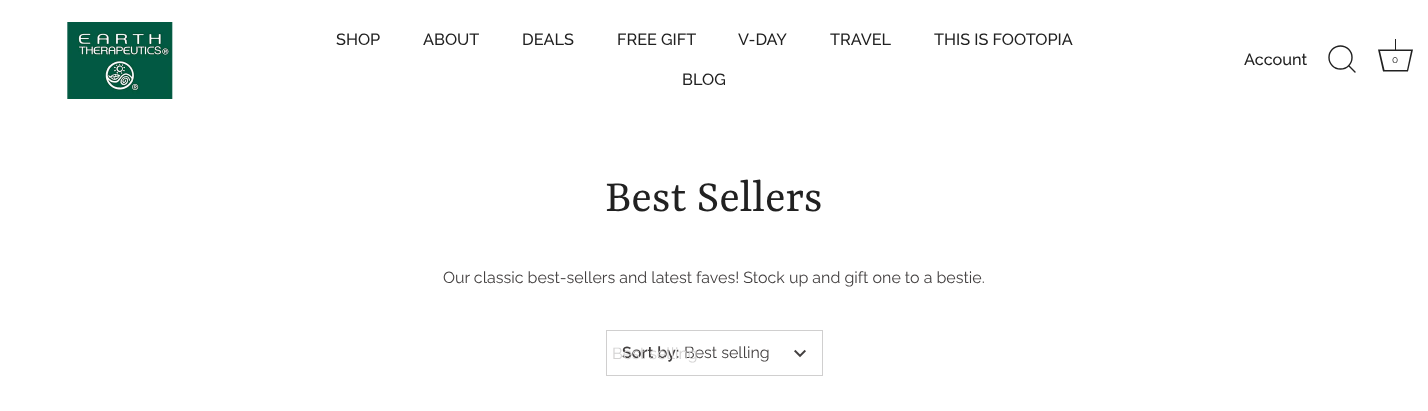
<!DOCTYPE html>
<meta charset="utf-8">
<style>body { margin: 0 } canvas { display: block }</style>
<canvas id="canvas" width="1428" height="411"></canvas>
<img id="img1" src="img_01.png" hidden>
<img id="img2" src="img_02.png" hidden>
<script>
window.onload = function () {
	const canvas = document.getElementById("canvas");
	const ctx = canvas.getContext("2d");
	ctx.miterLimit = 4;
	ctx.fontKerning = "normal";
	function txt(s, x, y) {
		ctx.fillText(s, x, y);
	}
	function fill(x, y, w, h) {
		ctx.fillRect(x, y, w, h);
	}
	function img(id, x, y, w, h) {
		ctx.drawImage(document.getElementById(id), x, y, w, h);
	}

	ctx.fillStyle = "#FFFFFF";
	fill(0, 0, 1428, 411);
	img("img1", 67, 22, 106, 77);
	ctx.beginPath();
	ctx.arc(1340.5, 57.5, 11.5, 0, Math.PI * 2);
	ctx.strokeStyle = "#212121";
	ctx.lineWidth = 1.4;
	ctx.stroke();
	ctx.beginPath();
	ctx.moveTo(1355, 72);
	ctx.lineTo(1349, 66);
	ctx.lineCap = "round";
	ctx.lineJoin = "round";
	ctx.stroke();
	ctx.fillStyle = "#212121";
	ctx.beginPath();
	ctx.moveTo(1411, 51);
	ctx.lineTo(1407, 70);
	ctx.lineTo(1384.5, 70);
	ctx.lineTo(1380, 51);
	ctx.lineTo(1411, 51);
	ctx.moveTo(1413, 49.5);
	ctx.lineTo(1378, 49.5);
	ctx.lineTo(1383, 71.5);
	ctx.lineTo(1408, 71.5);
	ctx.closePath();
	ctx.fill();
	fill(1395, 39, 1, 11);
	ctx.strokeStyle = "#D0CFCF";
	ctx.lineWidth = 1;
	ctx.lineJoin = "miter";
	ctx.strokeRect(606.5, 330.5, 216, 45);
	img("img2", 794, 349, 12, 9);
	ctx.font = "500 16.25px Raleway";
	txt("SHOP", 336, 45);
	txt("ABOUT", 423, 45);
	txt("DEALS", 522, 45);
	txt("FREE GIFT", 617, 45);
	txt("V-DAY", 738, 45);
	txt("TRAVEL", 830, 45);
	txt("THIS IS FOOTOPIA", 934, 45);
	txt("BLOG", 682, 85);
	txt("Account", 1244, 65);
	ctx.font = "10px Raleway";
	txt("0", 1392, 63);
	ctx.font = "48px Rasa";
	txt("Best Sellers", 605, 211);
	ctx.font = "16px Raleway";
	ctx.fillStyle = "#423F3F";
	txt("Our classic best-sellers and latest faves! Stock up and gift one to a bestie.", 443, 283);
	ctx.font = "600 16px Raleway";
	txt("Sort by:", 622, 358);
	ctx.font = "16px Raleway";
	txt("Best selling", 684, 358);
	ctx.fillStyle = "#D3D2D2";
	txt("Best selling", 612, 359);
};
</script>
